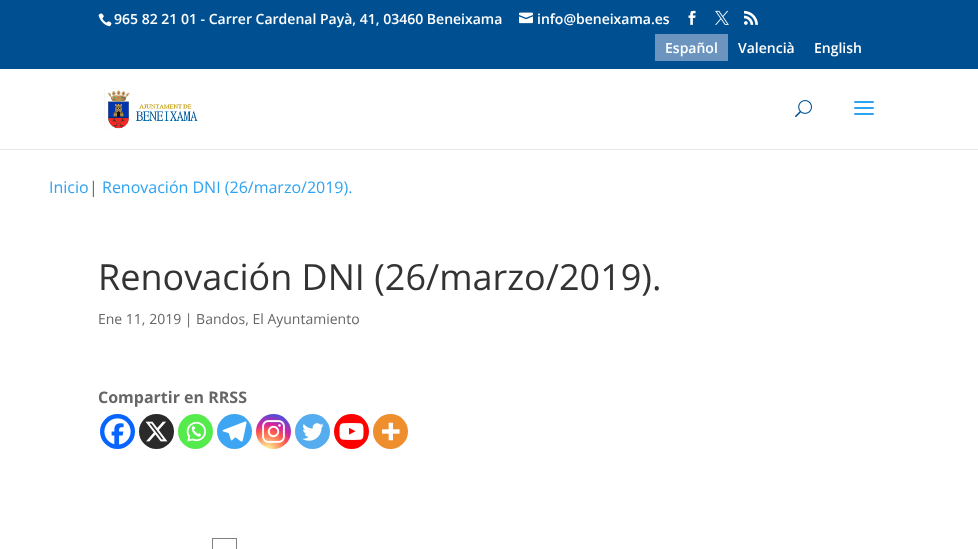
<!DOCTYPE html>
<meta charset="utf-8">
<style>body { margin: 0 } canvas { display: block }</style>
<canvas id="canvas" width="978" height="549"></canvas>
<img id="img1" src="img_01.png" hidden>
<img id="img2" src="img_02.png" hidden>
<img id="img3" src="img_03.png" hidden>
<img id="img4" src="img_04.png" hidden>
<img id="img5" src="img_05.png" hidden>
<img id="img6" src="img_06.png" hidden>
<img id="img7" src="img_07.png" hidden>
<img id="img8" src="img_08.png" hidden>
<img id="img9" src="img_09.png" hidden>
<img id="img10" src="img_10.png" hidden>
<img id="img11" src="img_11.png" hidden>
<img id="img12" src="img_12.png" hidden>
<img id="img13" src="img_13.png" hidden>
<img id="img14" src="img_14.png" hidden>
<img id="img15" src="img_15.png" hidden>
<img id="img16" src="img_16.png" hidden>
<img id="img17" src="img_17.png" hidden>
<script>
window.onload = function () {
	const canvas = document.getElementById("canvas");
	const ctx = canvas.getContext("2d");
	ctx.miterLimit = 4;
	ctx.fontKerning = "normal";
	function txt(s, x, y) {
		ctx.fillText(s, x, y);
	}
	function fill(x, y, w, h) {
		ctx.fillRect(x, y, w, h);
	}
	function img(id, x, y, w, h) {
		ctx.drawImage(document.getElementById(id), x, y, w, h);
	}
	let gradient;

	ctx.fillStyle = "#FFFFFF";
	fill(0, 0, 978, 549);
	ctx.fillStyle = "#005091";
	fill(0, 0, 978, 69);
	img("img1", 98, 13, 14, 14);
	img("img2", 519, 12, 14, 12);
	img("img3", 688, 10, 8, 15);
	img("img4", 715, 10, 14, 15);
	img("img5", 744, 10, 14, 15);
	ctx.fillStyle = "#6B95BF";
	fill(655, 34, 73, 27);
	ctx.fillStyle = "#E6E6E6";
	fill(0, 149, 978, 1);
	img("img6", 104, 89, 94, 41);
	img("img7", 795, 100, 17, 18);
	img("img8", 854, 101, 20, 14);
	ctx.fillStyle = "#0765FE";
	ctx.beginPath();
	ctx.arc(117.5, 431.5, 17.5, 0, Math.PI * 2);
	ctx.fill();
	img("img9", 104, 418, 27, 27);
	ctx.fillStyle = "#2A2A2A";
	ctx.beginPath();
	ctx.arc(156.5, 431.5, 17.5, 0, Math.PI * 2);
	ctx.fill();
	img("img10", 145, 421, 23, 21);
	ctx.fillStyle = "#55EB4C";
	ctx.beginPath();
	ctx.arc(195.5, 431.5, 17.5, 0, Math.PI * 2);
	ctx.fill();
	img("img11", 186, 421, 20, 21);
	ctx.fillStyle = "#3DA5F1";
	ctx.beginPath();
	ctx.arc(234.5, 431.5, 17.5, 0, Math.PI * 2);
	ctx.fill();
	img("img12", 222, 421, 25, 21);
	gradient = ctx.createRadialGradient(267, 451, 0, 267, 451, 45);
	gradient.addColorStop(0, "#FDF497");
	gradient.addColorStop(0.05, "#FDF497");
	gradient.addColorStop(0.45, "#FD5949");
	gradient.addColorStop(0.6, "#D6249F");
	gradient.addColorStop(0.9, "#285AEB");
	ctx.fillStyle = gradient;
	ctx.beginPath();
	ctx.arc(273.5, 431.5, 17.5, 0, Math.PI * 2);
	ctx.fill();
	img("img13", 262, 420, 23, 23);
	ctx.fillStyle = "#55ACEE";
	ctx.beginPath();
	ctx.arc(312.5, 431.5, 17.5, 0, Math.PI * 2);
	ctx.fill();
	img("img14", 302, 423, 22, 18);
	ctx.fillStyle = "#FF0000";
	ctx.beginPath();
	ctx.arc(351.5, 431.5, 17.5, 0, Math.PI * 2);
	ctx.fill();
	img("img15", 339, 423, 25, 17);
	ctx.fillStyle = "#EE8E2D";
	ctx.beginPath();
	ctx.arc(390.5, 431.5, 17.5, 0, Math.PI * 2);
	ctx.fill();
	img("img16", 382, 422, 18, 19);
	img("img17", 211, 532, 111, 17);
	ctx.font = "600 14px Open Sans";
	ctx.fillStyle = "#FFFFFF";
	txt("965 82 21 01 - Carrer Cardenal Payà, 41, 03460 Beneixama", 114, 24);
	txt("info@beneixama.es", 537, 24);
	txt("Español", 665, 53);
	txt("Valencià", 738, 53);
	txt("English", 814, 53);
	ctx.font = "16px Open Sans";
	ctx.fillStyle = "#2EA3F2";
	txt("Inicio", 49, 193);
	ctx.fillStyle = "#666666";
	txt("|", 89, 193);
	ctx.fillStyle = "#2EA3F2";
	txt("Renovación DNI (26/marzo/2019).", 102, 193);
	ctx.font = "36px Open Sans";
	ctx.fillStyle = "#333333";
	txt("Renovación DNI (26/marzo/2019).", 98, 290);
	ctx.font = "14px Open Sans";
	ctx.fillStyle = "#666666";
	txt("Ene 11, 2019 | Bandos, El Ayuntamiento", 98, 324);
	ctx.font = "bold 16px Open Sans";
	txt("Compartir en RRSS", 98, 403);
};
</script>
